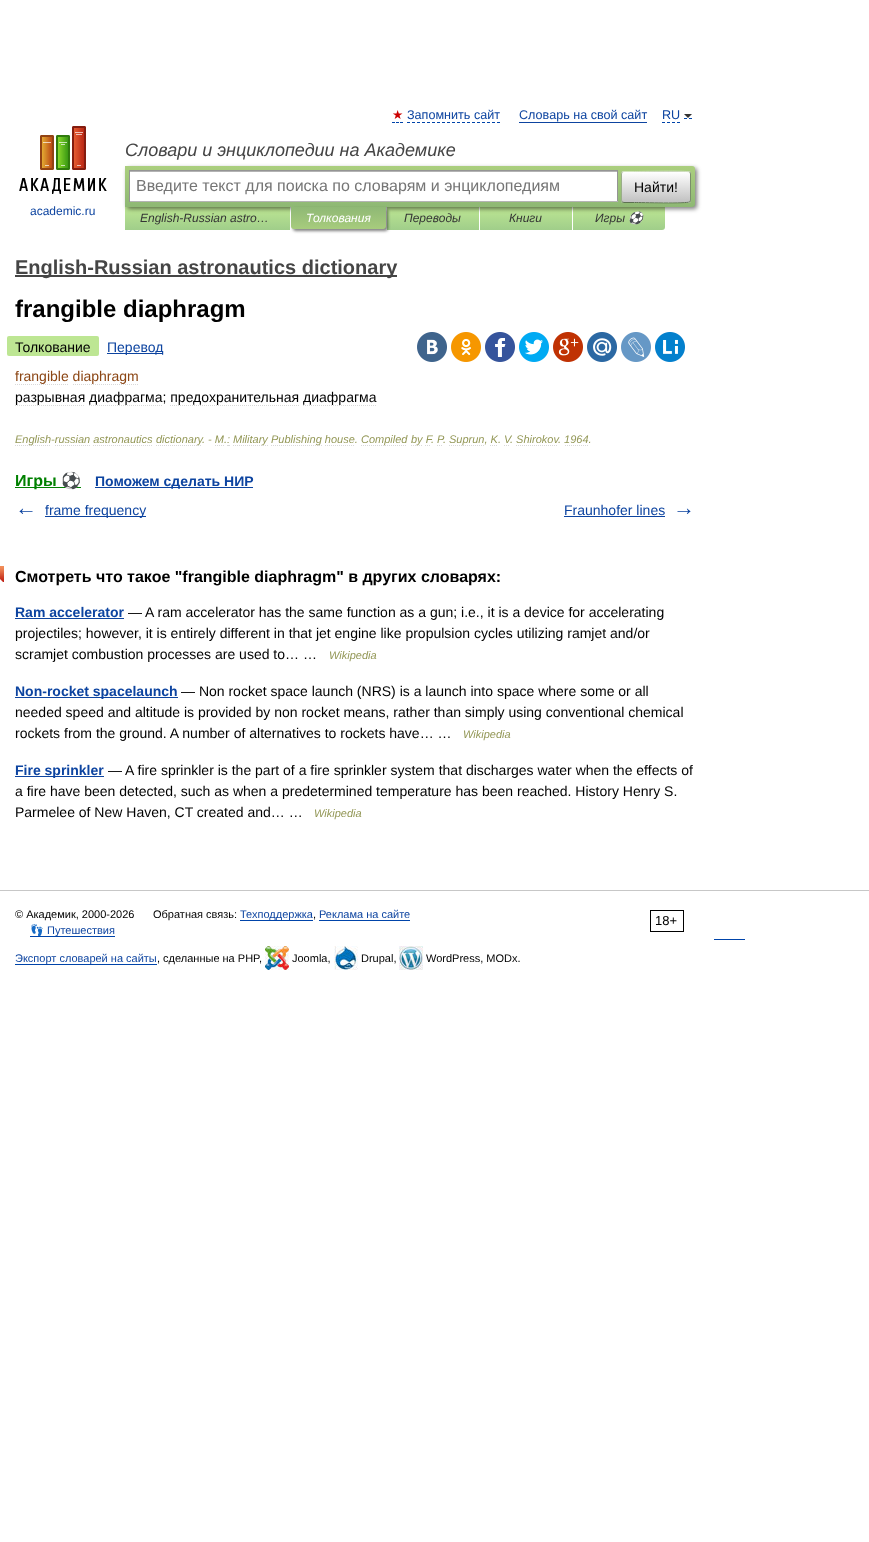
<!DOCTYPE html>
<meta charset="utf-8">
<style>body { margin: 0 } canvas { display: block }</style>
<canvas id="canvas" width="869" height="1542"></canvas>
<img id="img1" src="img_01.png" hidden>
<img id="img2" src="img_02.png" hidden>
<img id="img3" src="img_03.png" hidden>
<img id="img4" src="img_04.png" hidden>
<img id="img5" src="img_05.png" hidden>
<img id="img6" src="img_06.png" hidden>
<img id="img7" src="img_07.png" hidden>
<img id="img8" src="img_08.png" hidden>
<img id="img9" src="img_09.png" hidden>
<img id="img10" src="img_10.png" hidden>
<img id="img11" src="img_11.png" hidden>
<img id="img12" src="img_12.png" hidden>
<img id="img13" src="img_13.png" hidden>
<script>
window.onload = function () {
	const canvas = document.getElementById("canvas");
	const ctx = canvas.getContext("2d");
	ctx.miterLimit = 4;
	ctx.fontKerning = "normal";
	function txt(s, x, y) {
		ctx.fillText(s, x, y);
	}
	function fill(x, y, w, h) {
		ctx.fillRect(x, y, w, h);
	}
	function img(id, x, y, w, h) {
		ctx.drawImage(document.getElementById(id), x, y, w, h);
	}
	let gradient;

	ctx.fillStyle = "#FFFFFF";
	fill(0, 0, 869, 1542);
	ctx.beginPath();
	ctx.moveTo(392, 122.5);
	ctx.lineTo(395, 122.5);
	ctx.moveTo(396, 122.5);
	ctx.lineTo(399, 122.5);
	ctx.moveTo(400, 122.5);
	ctx.lineTo(403, 122.5);
	ctx.strokeStyle = "#0044AA";
	ctx.stroke();
	ctx.beginPath();
	ctx.moveTo(407, 122.5);
	ctx.lineTo(500, 122.5);
	ctx.setLineDash([3, 2]);
	ctx.stroke();
	ctx.fillStyle = "#0D44A0";
	fill(519, 122, 128, 1);
	ctx.beginPath();
	ctx.moveTo(662, 122.5);
	ctx.lineTo(680, 122.5);
	ctx.stroke();
	ctx.beginPath();
	ctx.moveTo(684, 118.5);
	ctx.lineTo(687, 118.5);
	ctx.moveTo(689, 118.5);
	ctx.lineTo(692, 118.5);
	ctx.setLineDash([]);
	ctx.stroke();
	ctx.fillStyle = "#333333";
	ctx.beginPath();
	ctx.moveTo(684, 114);
	ctx.lineTo(692, 114);
	ctx.lineTo(688, 118);
	ctx.closePath();
	ctx.fill();
	gradient = ctx.createLinearGradient(208, 207, 208, 230);
	gradient.addColorStop(0, "#BDE693");
	gradient.addColorStop(1, "#A0CE8A");
	ctx.fillStyle = gradient;
	fill(125, 207, 165, 23);
	gradient = ctx.createLinearGradient(433, 207, 433, 230);
	gradient.addColorStop(0, "#BDE693");
	gradient.addColorStop(1, "#A0CE8A");
	ctx.fillStyle = gradient;
	fill(387, 207, 92, 23);
	gradient = ctx.createLinearGradient(526, 207, 526, 230);
	gradient.addColorStop(0, "#BDE693");
	gradient.addColorStop(1, "#A0CE8A");
	ctx.fillStyle = gradient;
	fill(480, 207, 92, 23);
	gradient = ctx.createLinearGradient(619, 207, 619, 230);
	gradient.addColorStop(0, "#BDE693");
	gradient.addColorStop(1, "#A0CE8A");
	ctx.fillStyle = gradient;
	ctx.beginPath();
	ctx.roundRect(573, 207, 92, 23, [0, 0, 3, 0]);
	ctx.fill();
	ctx.fillStyle = "rgba(0, 0, 0, 0.5)";
	ctx.filter = "blur(2px)";
	ctx.beginPath();
	ctx.roundRect(127, 168, 570, 41, 3);
	ctx.fill();
	ctx.filter = "none";
	gradient = ctx.createLinearGradient(410, 166, 410, 207);
	gradient.addColorStop(0, "#ABCF7E");
	gradient.addColorStop(1, "#8EB874");
	ctx.fillStyle = gradient;
	ctx.beginPath();
	ctx.roundRect(125, 166, 570, 41, [0, 3, 3, 0]);
	ctx.fill();
	ctx.fillStyle = "#FFFFFF";
	fill(130, 172, 487, 29);
	ctx.fillStyle = "#B3B3B3";
	fill(130, 171, 487, 1);
	ctx.fillStyle = "#949494";
	fill(129, 170, 489, 1);
	fill(617, 170, 1, 32);
	ctx.fillStyle = "#B4B4B4";
	fill(129, 201, 489, 1);
	ctx.fillStyle = "#949494";
	fill(129, 170, 1, 32);
	ctx.save();
	ctx.beginPath();
	ctx.roundRect(621, 171, 70, 32, 3);
	ctx.clip();
	gradient = ctx.createLinearGradient(656, 142, 656, 172);
	gradient.addColorStop(0, "#FFFFFF");
	gradient.addColorStop(1, "#C1C1C1");
	ctx.fillStyle = gradient;
	fill(621, 171, 70, 1);
	gradient = ctx.createLinearGradient(656, 172, 656, 202);
	gradient.addColorStop(0, "#FFFFFF");
	gradient.addColorStop(1, "#C1C1C1");
	ctx.fillStyle = gradient;
	fill(621, 172, 70, 30);
	gradient = ctx.createLinearGradient(656, 202, 656, 232);
	gradient.addColorStop(0, "#FFFFFF");
	gradient.addColorStop(1, "#C1C1C1");
	ctx.fillStyle = gradient;
	fill(621, 202, 70, 1);
	ctx.restore();
	ctx.beginPath();
	ctx.moveTo(622, 172);
	ctx.lineTo(624, 171.5);
	ctx.lineTo(634.5, 171.5);
	ctx.bezierCurveTo(641, 171.5, 687.5, 170.5, 689.5, 172);
	ctx.lineTo(690, 172);
	ctx.strokeStyle = "#D1E4BC";
	ctx.stroke();
	ctx.beginPath();
	ctx.moveTo(690, 172);
	ctx.bezierCurveTo(690, 172.5, 690.5, 173.5, 690.5, 174);
	ctx.lineTo(690.5, 200);
	ctx.bezierCurveTo(690.5, 200.5, 690, 201.5, 690, 202);
	ctx.strokeStyle = "#7A8E69";
	ctx.stroke();
	ctx.beginPath();
	ctx.moveTo(690, 202);
	ctx.lineTo(689.5, 202);
	ctx.bezierCurveTo(687.5, 203.5, 641, 202.5, 634.5, 202.5);
	ctx.lineTo(624, 202.5);
	ctx.lineTo(622, 202);
	ctx.strokeStyle = "#5D7250";
	ctx.stroke();
	ctx.beginPath();
	ctx.moveTo(622, 202);
	ctx.bezierCurveTo(622, 201.5, 621.5, 200.5, 621.5, 200);
	ctx.lineTo(621.5, 174);
	ctx.bezierCurveTo(621.5, 173.5, 622, 172.5, 622, 172);
	ctx.strokeStyle = "#9AAE89";
	ctx.stroke();
	img("img1", 19, 126, 88, 68);
	ctx.fillStyle = "rgba(0, 0, 0, 0.5)";
	ctx.filter = "blur(1.5px)";
	ctx.beginPath();
	ctx.roundRect(293, 209, 95, 22, 3);
	ctx.fill();
	ctx.filter = "none";
	gradient = ctx.createLinearGradient(339, 207, 339, 229);
	gradient.addColorStop(0, "#8FB875");
	gradient.addColorStop(1, "#A7CC7D");
	ctx.fillStyle = gradient;
	ctx.beginPath();
	ctx.roundRect(291, 207, 95, 22, [0, 0, 3, 3]);
	ctx.fill();
	ctx.fillStyle = "#454545";
	fill(15, 275, 382, 2);
	ctx.fillStyle = "#BDE693";
	ctx.beginPath();
	ctx.roundRect(7, 336, 8, 20, [2, 0, 0, 2]);
	ctx.fill();
	ctx.beginPath();
	ctx.roundRect(15, 336, 84, 20, [0, 2, 2, 0]);
	ctx.fill();
	ctx.fillStyle = "#0D44A0";
	fill(107, 353, 56, 1);
	img("img2", 417, 332, 30, 30);
	img("img3", 451, 332, 30, 30);
	img("img4", 485, 332, 30, 30);
	img("img5", 519, 332, 30, 30);
	img("img6", 553, 332, 30, 30);
	img("img7", 587, 332, 30, 30);
	img("img8", 621, 332, 30, 30);
	img("img9", 655, 332, 30, 30);
	ctx.beginPath();
	ctx.moveTo(15, 384.5);
	ctx.lineTo(69, 384.5);
	ctx.strokeStyle = "#D9D9D9";
	ctx.setLineDash([1, 1]);
	ctx.stroke();
	ctx.beginPath();
	ctx.moveTo(73, 384.5);
	ctx.lineTo(139, 384.5);
	ctx.stroke();
	ctx.beginPath();
	ctx.moveTo(15, 405.5);
	ctx.lineTo(85, 405.5);
	ctx.stroke();
	ctx.beginPath();
	ctx.moveTo(89, 405.5);
	ctx.lineTo(163, 405.5);
	ctx.stroke();
	ctx.beginPath();
	ctx.moveTo(170, 405.5);
	ctx.lineTo(299, 405.5);
	ctx.stroke();
	ctx.beginPath();
	ctx.moveTo(303, 405.5);
	ctx.lineTo(376, 405.5);
	ctx.stroke();
	ctx.beginPath();
	ctx.moveTo(15, 445.5);
	ctx.lineTo(51, 445.5);
	ctx.stroke();
	ctx.beginPath();
	ctx.moveTo(156, 445.5);
	ctx.lineTo(202, 445.5);
	ctx.stroke();
	ctx.beginPath();
	ctx.moveTo(215, 445.5);
	ctx.lineTo(224, 445.5);
	ctx.stroke();
	ctx.fillStyle = "#D9D9D9";
	fill(227, 445, 3, 1);
	ctx.beginPath();
	ctx.moveTo(233, 445.5);
	ctx.lineTo(268, 445.5);
	ctx.stroke();
	ctx.beginPath();
	ctx.moveTo(271, 445.5);
	ctx.lineTo(322, 445.5);
	ctx.stroke();
	ctx.beginPath();
	ctx.moveTo(361, 445.5);
	ctx.lineTo(407, 445.5);
	ctx.stroke();
	ctx.beginPath();
	ctx.moveTo(411, 445.5);
	ctx.lineTo(422, 445.5);
	ctx.stroke();
	ctx.beginPath();
	ctx.moveTo(449, 445.5);
	ctx.lineTo(484, 445.5);
	ctx.stroke();
	ctx.beginPath();
	ctx.moveTo(516, 445.5);
	ctx.lineTo(558, 445.5);
	ctx.stroke();
	ctx.beginPath();
	ctx.moveTo(565, 445.5);
	ctx.lineTo(589, 445.5);
	ctx.stroke();
	ctx.beginPath();
	ctx.moveTo(437, 445.5);
	ctx.lineTo(438, 445.5);
	ctx.moveTo(439, 445.5);
	ctx.lineTo(440, 445.5);
	ctx.moveTo(441, 445.5);
	ctx.lineTo(442, 445.5);
	ctx.setLineDash([]);
	ctx.stroke();
	ctx.fillStyle = "#008000";
	fill(15, 487, 66, 1);
	ctx.fillStyle = "#0D44A0";
	fill(95, 487, 158, 1);
	fill(45, 516, 101, 1);
	fill(564, 516, 101, 1);
	img("img10", 0, 566, 4, 16);
	fill(15, 618, 109, 1);
	fill(15, 697, 163, 1);
	fill(15, 776, 89, 1);
	ctx.fillStyle = "#C7C7C7";
	fill(0, 890, 869, 1);
	ctx.fillStyle = "#0044AA";
	fill(240, 920, 73, 1);
	fill(319, 920, 91, 1);
	ctx.strokeStyle = "#000000";
	ctx.strokeRect(650.5, 910.5, 33, 21);
	fill(30, 936, 85, 1);
	fill(714, 939, 31, 1);
	fill(15, 964, 142, 1);
	img("img11", 265, 946, 24, 24);
	img("img12", 334, 946, 24, 24);
	img("img13", 399, 946, 24, 24);
	ctx.font = "12.6px DejaVu Sans";
	ctx.fillStyle = "#CC0000";
	txt("★", 392, 119);
	ctx.font = "12.6px Liberation Sans";
	ctx.fillStyle = "#0D44A0";
	txt("Запомнить сайт", 407, 119);
	txt("Словарь на свой сайт", 519, 119);
	txt("RU", 662, 119);
	ctx.font = "italic 18px Liberation Sans";
	ctx.fillStyle = "#454545";
	txt("Словари и энциклопедии на Академике", 125, 156);
	ctx.font = "16px Liberation Sans";
	ctx.fillStyle = "#757575";
	txt("Введите текст для поиска по словарям и энциклопедиям", 136, 191);
	ctx.font = "14px Liberation Sans";
	ctx.fillStyle = "#000000";
	txt("Найти!", 634, 192);
	ctx.font = "12px Liberation Sans";
	ctx.fillStyle = "#0D44A0";
	txt("academic.ru", 30, 215);
	ctx.font = "italic 12px Liberation Sans";
	ctx.fillStyle = "#353535";
	txt("English-Russian astro…", 140, 222);
	ctx.fillStyle = "#FFFFFF";
	txt("Толкования", 306, 222);
	ctx.fillStyle = "#353535";
	txt("Переводы", 404, 222);
	txt("Книги", 509, 222);
	txt("Игры", 595, 222);
	ctx.font = "italic 12px Noto Color Emoji";
	txt("⚽", 628, 222);
	ctx.font = "bold 20px Liberation Sans";
	ctx.fillStyle = "#454545";
	txt("English-Russian astronautics dictionary", 15, 274);
	ctx.font = "bold 24px Liberation Sans";
	ctx.fillStyle = "#000000";
	txt("frangible diaphragm", 15, 317);
	ctx.font = "14px Liberation Sans";
	txt("Толкование", 15, 352);
	ctx.fillStyle = "#0D44A0";
	txt("Перевод", 107, 352);
	ctx.fillStyle = "#8B4513";
	txt("frangible diaphragm", 15, 381);
	ctx.fillStyle = "#000000";
	txt("разрывная диафрагма; предохранительная диафрагма", 15, 402);
	ctx.font = "italic 11px Liberation Sans";
	ctx.fillStyle = "#939756";
	txt("English-russian astronautics", 15, 443);
	ctx.beginPath();
	ctx.moveTo(55, 445.5);
	ctx.lineTo(90, 445.5);
	ctx.strokeStyle = "#D9D9D9";
	ctx.setLineDash([1, 1]);
	ctx.stroke();
	ctx.beginPath();
	ctx.moveTo(93, 445.5);
	ctx.lineTo(153, 445.5);
	ctx.stroke();
	txt("dictionary", 156, 443);
	txt(". - M.:", 202, 443);
	txt("Military", 233, 443);
	txt("Publishing house.", 271, 443);
	ctx.beginPath();
	ctx.moveTo(325, 445.5);
	ctx.lineTo(355, 445.5);
	ctx.stroke();
	txt("Compiled", 361, 443);
	txt("by F", 411, 443);
	ctx.beginPath();
	ctx.moveTo(425, 445.5);
	ctx.lineTo(426, 445.5);
	ctx.moveTo(427, 445.5);
	ctx.lineTo(428, 445.5);
	ctx.moveTo(429, 445.5);
	ctx.lineTo(430, 445.5);
	ctx.setLineDash([]);
	ctx.stroke();
	txt(". P", 431, 443);
	txt("Suprun, K. V", 449, 443);
	ctx.beginPath();
	ctx.moveTo(490, 445.5);
	ctx.lineTo(498, 445.5);
	ctx.setLineDash([1, 1]);
	ctx.stroke();
	ctx.beginPath();
	ctx.moveTo(504, 445.5);
	ctx.lineTo(505, 445.5);
	ctx.moveTo(506, 445.5);
	ctx.lineTo(507, 445.5);
	ctx.moveTo(508, 445.5);
	ctx.lineTo(509, 445.5);
	ctx.setLineDash([]);
	ctx.stroke();
	txt(". Shirokov", 510, 443);
	txt(". 1964.", 558, 443);
	txt(".", 443, 443);
	ctx.font = "bold 16px Liberation Sans";
	ctx.fillStyle = "#008000";
	txt("Игры", 15, 486);
	ctx.font = "bold 16px Noto Color Emoji";
	txt("⚽", 61, 486);
	ctx.font = "bold 14px Liberation Sans";
	ctx.fillStyle = "#0D44A0";
	txt("Поможем сделать НИР", 95, 486);
	ctx.font = "bold 22px Liberation Sans";
	txt("←", 15, 515);
	ctx.font = "14px Liberation Sans";
	txt("frame frequency", 45, 515);
	txt("Fraunhofer lines", 564, 515);
	ctx.font = "bold 22px Liberation Sans";
	txt("→", 673, 515);
	ctx.font = "bold 16px Liberation Sans";
	ctx.fillStyle = "#000000";
	txt("Смотреть что такое \"frangible diaphragm\" в других словарях:", 15, 582);
	ctx.font = "bold 14px Liberation Sans";
	ctx.fillStyle = "#0D44A0";
	txt("Ram accelerator", 15, 617);
	ctx.font = "14px Liberation Sans";
	ctx.fillStyle = "#000000";
	txt("— A ram accelerator has the same function as a gun; i.e., it is a device for accelerating", 128, 617);
	txt("projectiles; however, it is entirely different in that jet engine like propulsion cycles utilizing ramjet and/or", 15, 638);
	txt("scramjet combustion processes are used to… …", 15, 659);
	ctx.font = "italic 11px Liberation Sans";
	ctx.fillStyle = "#939756";
	txt("Wikipedia", 329, 659);
	ctx.font = "bold 14px Liberation Sans";
	ctx.fillStyle = "#0D44A0";
	txt("Non-rocket spacelaunch", 15, 696);
	ctx.font = "14px Liberation Sans";
	ctx.fillStyle = "#000000";
	txt("— Non rocket space launch (NRS) is a launch into space where some or all", 181, 696);
	txt("needed speed and altitude is provided by non rocket means, rather than simply using conventional chemical", 15, 717);
	txt("rockets from the ground. A number of alternatives to rockets have… …", 15, 738);
	ctx.font = "italic 11px Liberation Sans";
	ctx.fillStyle = "#939756";
	txt("Wikipedia", 463, 738);
	ctx.font = "bold 14px Liberation Sans";
	ctx.fillStyle = "#0D44A0";
	txt("Fire sprinkler", 15, 775);
	ctx.font = "14px Liberation Sans";
	ctx.fillStyle = "#000000";
	txt("— A fire sprinkler is the part of a fire sprinkler system that discharges water when the effects of", 108, 775);
	txt("a fire have been detected, such as when a predetermined temperature has been reached. History Henry S.", 15, 796);
	txt("Parmelee of New Haven, CT created and… …", 15, 817);
	ctx.font = "italic 11px Liberation Sans";
	ctx.fillStyle = "#939756";
	txt("Wikipedia", 314, 817);
	ctx.font = "11px Liberation Sans";
	ctx.fillStyle = "#000000";
	txt("© Академик, 2000-2026", 15, 918);
	txt("Обратная связь:", 153, 918);
	ctx.fillStyle = "#0D44A0";
	txt("Техподдержка", 240, 918);
	ctx.fillStyle = "#000000";
	txt(",", 313, 918);
	ctx.fillStyle = "#0D44A0";
	txt("Реклама на сайте", 319, 918);
	ctx.font = "13px Liberation Sans";
	ctx.fillStyle = "#000000";
	txt("18+", 655, 925);
	ctx.font = "11px Noto Color Emoji";
	ctx.fillStyle = "#0D44A0";
	txt("👣", 30, 934);
	ctx.font = "11px Liberation Sans";
	txt("Путешествия", 47, 934);
	txt("Экспорт словарей на сайты", 15, 962);
	ctx.fillStyle = "#000000";
	txt(", сделанные на PHP,", 157, 962);
	txt("Joomla,", 292, 962);
	txt("Drupal,", 361, 962);
	txt("WordPress, MODx.", 426, 962);
};
</script>
